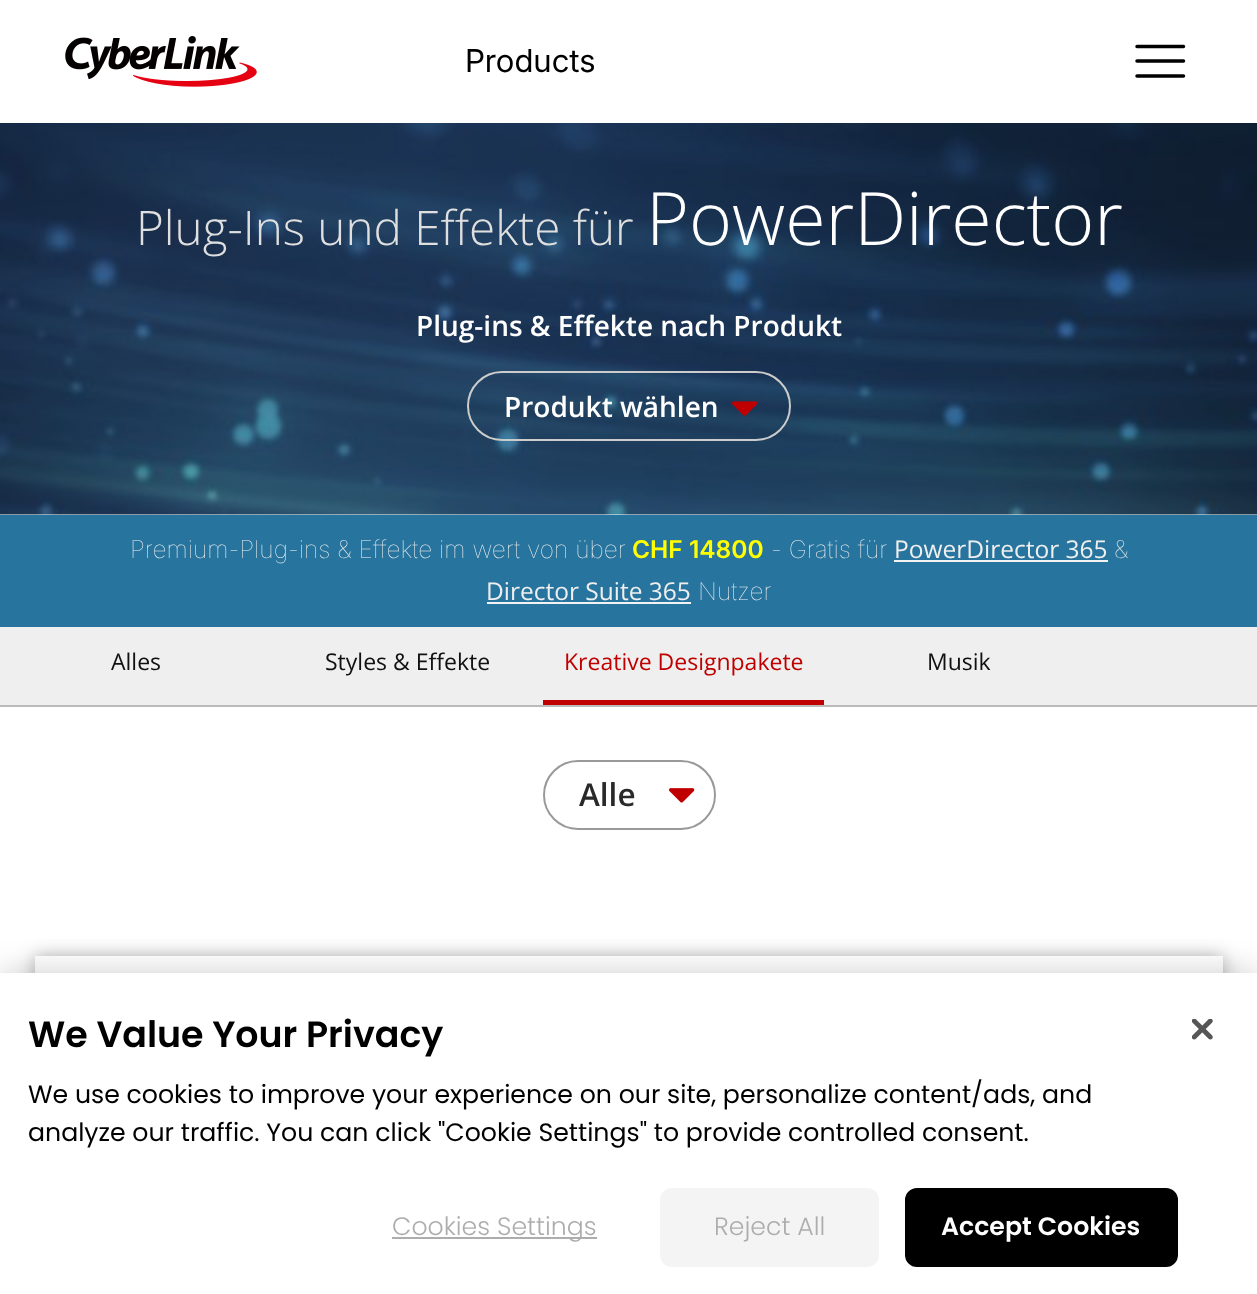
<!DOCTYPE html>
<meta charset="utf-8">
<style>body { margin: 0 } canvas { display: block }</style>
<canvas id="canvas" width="1257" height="1294"></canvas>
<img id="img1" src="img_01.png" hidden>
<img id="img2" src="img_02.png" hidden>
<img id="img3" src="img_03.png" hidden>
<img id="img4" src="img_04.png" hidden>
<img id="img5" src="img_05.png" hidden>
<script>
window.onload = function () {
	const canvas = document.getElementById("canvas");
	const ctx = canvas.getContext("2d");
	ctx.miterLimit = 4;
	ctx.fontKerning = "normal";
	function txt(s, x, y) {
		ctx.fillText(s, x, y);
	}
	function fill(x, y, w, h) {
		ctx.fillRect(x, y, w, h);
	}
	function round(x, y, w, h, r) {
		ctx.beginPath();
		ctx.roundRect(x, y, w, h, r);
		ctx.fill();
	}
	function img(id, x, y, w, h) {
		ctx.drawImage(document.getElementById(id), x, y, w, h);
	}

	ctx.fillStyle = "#FFFFFF";
	fill(0, 0, 1257, 1294);
	img("img1", 65, 36, 192, 51);
	ctx.beginPath();
	ctx.moveTo(1137, 46.5);
	ctx.lineTo(1183.5, 46.5);
	ctx.moveTo(1137, 61);
	ctx.lineTo(1183.5, 61);
	ctx.moveTo(1137, 76);
	ctx.lineTo(1183.5, 76);
	ctx.strokeStyle = "#000000";
	ctx.lineWidth = 3.5;
	ctx.lineCap = "round";
	ctx.stroke();
	img("img2", 0, 123, 1257, 392);
	img("img3", 732, 401, 26, 15);
	ctx.beginPath();
	ctx.roundRect(468, 372, 322, 68, 34);
	ctx.strokeStyle = "#CCCCCC";
	ctx.lineWidth = 2;
	ctx.stroke();
	ctx.fillStyle = "#27749E";
	fill(0, 515, 1257, 112);
	ctx.fillStyle = "#F3F3F3";
	fill(894, 560, 214, 2);
	fill(487, 602, 204, 2);
	ctx.fillStyle = "#EFEFEF";
	fill(0, 627, 1257, 78);
	ctx.fillStyle = "#BBBBBB";
	fill(0, 705, 1257, 2);
	ctx.fillStyle = "#C00000";
	fill(543, 700, 281, 5);
	img("img4", 669, 788, 26, 15);
	ctx.beginPath();
	ctx.roundRect(544, 761, 171, 68, 34);
	ctx.strokeStyle = "#999999";
	ctx.stroke();
	ctx.save();
	ctx.beginPath();
	ctx.moveTo(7, 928);
	ctx.lineTo(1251, 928);
	ctx.lineTo(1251, 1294);
	ctx.lineTo(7, 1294);
	ctx.closePath();
	ctx.moveTo(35, 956);
	ctx.lineTo(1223, 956);
	ctx.lineTo(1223, 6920);
	ctx.lineTo(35, 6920);
	ctx.closePath();
	ctx.clip("evenodd");
	ctx.fillStyle = "rgba(0, 0, 0, 0.3)";
	ctx.filter = "blur(9px)";
	ctx.beginPath();
	ctx.rect(35, 956, 1188, 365);
	ctx.fill();
	ctx.filter = "none";
	ctx.restore();
	ctx.fillStyle = "rgba(0, 0, 0, 0.2)";
	ctx.filter = "blur(16px)";
	ctx.beginPath();
	ctx.rect(0, 973, 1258, 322);
	ctx.fill();
	ctx.filter = "none";
	ctx.fillStyle = "#FFFFFF";
	fill(0, 973, 1257, 321);
	ctx.fillStyle = "#ADADAD";
	fill(392, 1237, 205, 2);
	ctx.fillStyle = "#F4F4F4";
	round(660, 1188, 219, 79, 12);
	ctx.fillStyle = "#000000";
	ctx.beginPath();
	ctx.roundRect(906, 1189, 271, 77, 11);
	ctx.fill();
	ctx.strokeStyle = "#000000";
	ctx.stroke();
	img("img5", 1192, 1019, 21, 21);
	ctx.font = "31.5px Inter";
	txt("Products", 465, 72);
	ctx.font = "300 47.6px Open Sans";
	ctx.fillStyle = "#DFDFDF";
	txt("Plug-Ins und Effekte für", 136, 245);
	ctx.font = "300 73.5px Open Sans";
	ctx.fillStyle = "#FFFFFF";
	txt("PowerDirector", 646, 245);
	ctx.font = "600 28px Open Sans";
	txt("Plug-ins & Effekte nach Produkt", 416, 336);
	txt("Produkt wählen", 504, 417);
	ctx.font = "100 24.5px Inter";
	ctx.fillStyle = "#EFEFEF";
	txt("Premium-Plug-ins & Effekte im wert von über", 130, 558);
	ctx.font = "600 24.5px Inter";
	ctx.fillStyle = "#FFFF00";
	txt("CHF 14800", 632, 558);
	ctx.font = "100 24.5px Inter";
	ctx.fillStyle = "#EFEFEF";
	txt("- Gratis für", 771, 558);
	ctx.font = "24.5px Open Sans";
	txt("PowerDirector 365", 894, 558);
	ctx.font = "100 24.5px Inter";
	txt("&", 1114, 558);
	ctx.font = "24.5px Open Sans";
	txt("Director Suite 365", 486, 600);
	ctx.font = "100 24.5px Inter";
	txt("Nutzer", 698, 600);
	ctx.font = "23px Open Sans";
	ctx.fillStyle = "#111111";
	txt("Alles", 111, 670);
	txt("Styles & Effekte", 325, 670);
	ctx.fillStyle = "#C00000";
	txt("Kreative Designpakete", 564, 670);
	ctx.fillStyle = "#111111";
	txt("Musik", 927, 670);
	ctx.font = "600 31.5px Open Sans";
	ctx.fillStyle = "#292929";
	txt("Alle", 579, 806);
	ctx.font = "600 36.4px Poppins";
	ctx.fillStyle = "#000000";
	txt("We Value Your Privacy", 28, 1047);
	ctx.font = "25.2px Poppins";
	txt("We use cookies to improve your experience on our site, personalize content/ads, and", 28, 1103);
	txt("analyze our traffic. You can click \"Cookie Settings\" to provide controlled consent.", 28, 1141);
	ctx.font = "300 25.2px Poppins";
	ctx.fillStyle = "#ADADAD";
	txt("Cookies Settings", 392, 1235);
	txt("Reject All", 714, 1235);
	ctx.font = "600 25.2px Poppins";
	ctx.fillStyle = "#FFFFFF";
	txt("Accept Cookies", 941, 1235);
};
</script>
